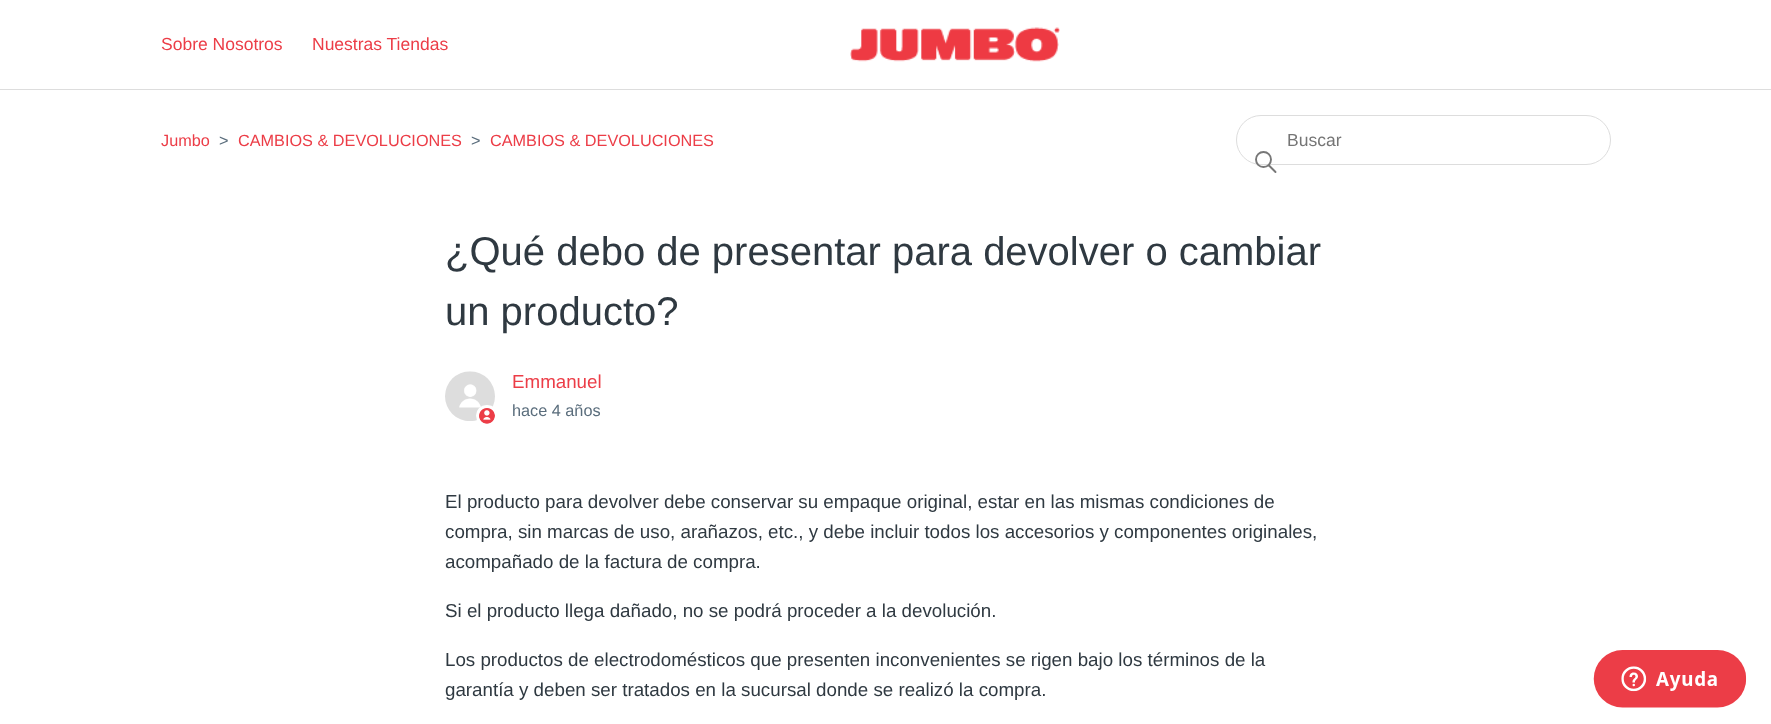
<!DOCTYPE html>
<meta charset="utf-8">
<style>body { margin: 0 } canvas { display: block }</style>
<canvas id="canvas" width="1771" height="724"></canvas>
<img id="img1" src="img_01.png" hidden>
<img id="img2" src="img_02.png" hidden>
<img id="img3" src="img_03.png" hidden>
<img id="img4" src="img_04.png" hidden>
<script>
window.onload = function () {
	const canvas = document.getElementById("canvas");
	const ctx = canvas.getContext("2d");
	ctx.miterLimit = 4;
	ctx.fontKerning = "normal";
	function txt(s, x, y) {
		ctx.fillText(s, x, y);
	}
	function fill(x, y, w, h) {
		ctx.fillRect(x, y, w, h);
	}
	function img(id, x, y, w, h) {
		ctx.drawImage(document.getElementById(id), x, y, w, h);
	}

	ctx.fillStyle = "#FFFFFF";
	fill(0, 0, 1771, 724);
	img("img1", 850, 27, 210, 35);
	ctx.fillStyle = "#DDDDDD";
	fill(0, 89, 1771, 1);
	ctx.beginPath();
	ctx.roundRect(1236.5, 115.5, 374, 49, 24.5);
	ctx.strokeStyle = "#DDDDDD";
	ctx.stroke();
	ctx.beginPath();
	ctx.arc(1263.5, 159.5, 7.5, 0, Math.PI * 2);
	ctx.strokeStyle = "#777777";
	ctx.lineWidth = 1.9;
	ctx.stroke();
	ctx.beginPath();
	ctx.moveTo(1275.5, 172);
	ctx.lineTo(1269, 165.5);
	ctx.lineCap = "round";
	ctx.stroke();
	img("img2", 445, 371, 50, 50);
	ctx.fillStyle = "#FFFFFF";
	ctx.beginPath();
	ctx.roundRect(477.5, 406.5, 19, 18, 9);
	ctx.fill();
	ctx.strokeStyle = "#FFFFFF";
	ctx.lineWidth = 3;
	ctx.stroke();
	img("img3", 479, 408, 16, 16);
	img("img4", 1593, 650, 154, 58);
	ctx.font = "17.5px Liberation Sans";
	ctx.fillStyle = "#EC3D47";
	txt("Sobre Nosotros", 161, 50);
	txt("Nuestras Tiendas", 312, 50);
	ctx.font = "16.25px Liberation Sans";
	txt("Jumbo", 161, 146);
	ctx.fillStyle = "#5A6D7C";
	txt(">", 219, 146);
	ctx.fillStyle = "#EC3D47";
	txt("CAMBIOS & DEVOLUCIONES", 238, 146);
	ctx.fillStyle = "#5A6D7C";
	txt(">", 471, 146);
	ctx.fillStyle = "#EC3D47";
	txt("CAMBIOS & DEVOLUCIONES", 490, 146);
	ctx.font = "17.5px Liberation Sans";
	ctx.fillStyle = "#757575";
	txt("Buscar", 1287, 146);
	ctx.font = "40px Liberation Sans";
	ctx.fillStyle = "#2F3941";
	txt("¿Qué debo de presentar para devolver o cambiar", 445, 265);
	txt("un producto?", 445, 325);
	ctx.font = "18.75px Liberation Sans";
	ctx.fillStyle = "#EC3D47";
	txt("Emmanuel", 512, 388);
	ctx.font = "16.25px Liberation Sans";
	ctx.fillStyle = "#5A6D7C";
	txt("hace 4 años", 512, 416);
	ctx.font = "18.75px Liberation Sans";
	ctx.fillStyle = "#2F3941";
	txt("El producto para devolver debe conservar su empaque original, estar en las mismas condiciones de", 445, 508);
	txt("compra, sin marcas de uso, arañazos, etc., y debe incluir todos los accesorios y componentes originales,", 445, 538);
	txt("acompañado de la factura de compra.", 445, 568);
	txt("Si el producto llega dañado, no se podrá proceder a la devolución.", 445, 617);
	txt("Los productos de electrodomésticos que presenten inconvenientes se rigen bajo los términos de la", 445, 666);
	txt("garantía y deben ser tratados en la sucursal donde se realizó la compra.", 445, 696);
};
</script>
